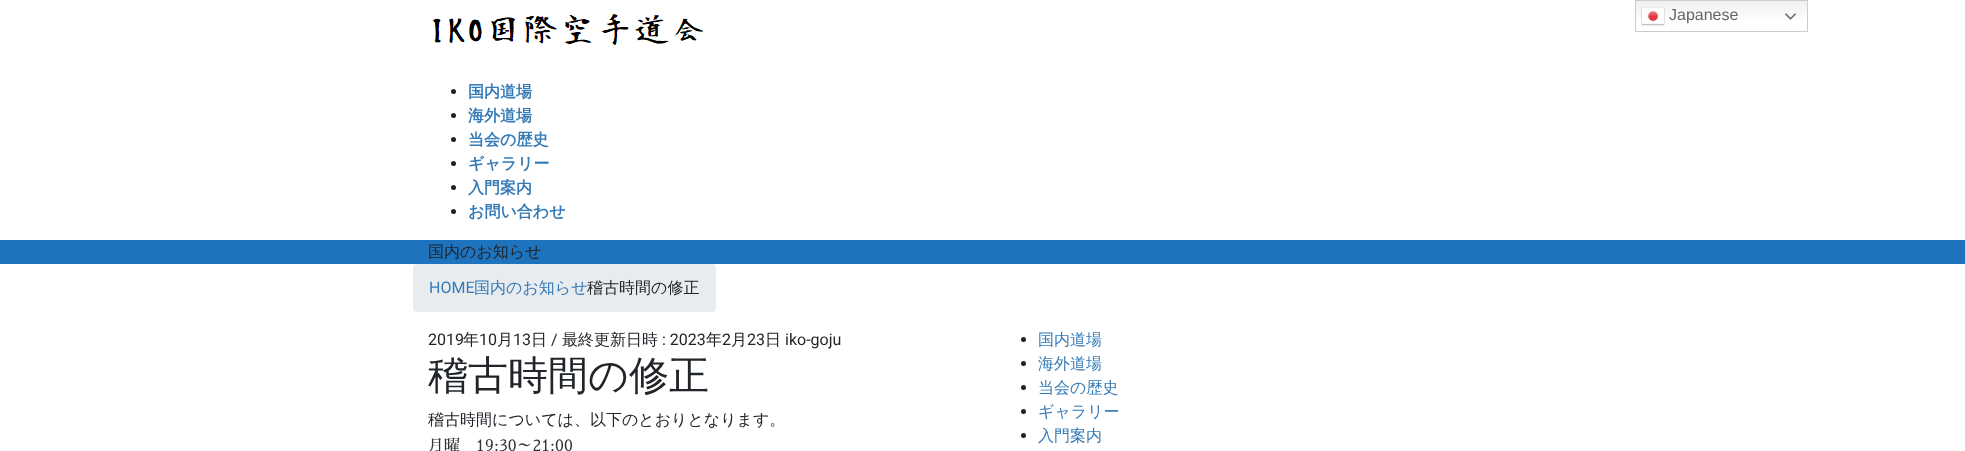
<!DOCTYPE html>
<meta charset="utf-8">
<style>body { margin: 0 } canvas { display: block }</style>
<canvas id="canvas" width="1965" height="451"></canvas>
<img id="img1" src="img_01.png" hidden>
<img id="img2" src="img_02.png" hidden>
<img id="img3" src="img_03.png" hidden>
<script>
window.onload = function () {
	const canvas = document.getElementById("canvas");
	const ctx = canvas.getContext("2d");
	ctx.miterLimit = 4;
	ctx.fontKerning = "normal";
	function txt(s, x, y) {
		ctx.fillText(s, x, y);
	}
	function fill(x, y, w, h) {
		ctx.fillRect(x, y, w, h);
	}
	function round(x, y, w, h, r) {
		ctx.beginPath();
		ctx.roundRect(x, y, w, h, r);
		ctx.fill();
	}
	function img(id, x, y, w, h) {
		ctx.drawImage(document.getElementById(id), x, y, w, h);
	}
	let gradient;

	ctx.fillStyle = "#FFFFFF";
	fill(0, 0, 1965, 451);
	gradient = ctx.createLinearGradient(1722, 0, 1722, 32);
	gradient.addColorStop(0, "#EFEFEF");
	gradient.addColorStop(0.7, "#FFFFFF");
	ctx.fillStyle = gradient;
	fill(1636, 1, 171, 18);
	ctx.strokeStyle = "#CCCCCC";
	ctx.strokeRect(1635.5, 0.5, 172, 31);
	img("img1", 1641, 7, 24, 19);
	img("img2", 1785, 13, 11, 7);
	img("img3", 432, 14, 272, 31);
	ctx.fillStyle = "#212529";
	ctx.beginPath();
	ctx.arc(453.5, 91.5, 2.5, 0, Math.PI * 2);
	ctx.fill();
	ctx.beginPath();
	ctx.arc(453.5, 115.5, 2.5, 0, Math.PI * 2);
	ctx.fill();
	ctx.beginPath();
	ctx.arc(453.5, 139.5, 2.5, 0, Math.PI * 2);
	ctx.fill();
	ctx.beginPath();
	ctx.arc(453.5, 163.5, 2.5, 0, Math.PI * 2);
	ctx.fill();
	ctx.beginPath();
	ctx.arc(453.5, 187.5, 2.5, 0, Math.PI * 2);
	ctx.fill();
	ctx.beginPath();
	ctx.arc(453.5, 211.5, 2.5, 0, Math.PI * 2);
	ctx.fill();
	ctx.fillStyle = "#1E73BE";
	fill(0, 240, 1965, 24);
	ctx.fillStyle = "#E9ECEF";
	round(413, 264, 303, 48, 4);
	ctx.fillStyle = "#212529";
	ctx.beginPath();
	ctx.arc(1023.5, 339.5, 2.5, 0, Math.PI * 2);
	ctx.fill();
	ctx.beginPath();
	ctx.arc(1023.5, 363.5, 2.5, 0, Math.PI * 2);
	ctx.fill();
	ctx.beginPath();
	ctx.arc(1023.5, 387.5, 2.5, 0, Math.PI * 2);
	ctx.fill();
	ctx.beginPath();
	ctx.arc(1023.5, 411.5, 2.5, 0, Math.PI * 2);
	ctx.fill();
	ctx.beginPath();
	ctx.arc(1023.5, 435.5, 2.5, 0, Math.PI * 2);
	ctx.fill();
	ctx.font = "16px Liberation Sans";
	ctx.fillStyle = "#666666";
	txt("Japanese", 1669, 20);
	ctx.font = "bold 16px WenQuanYi Zen Hei";
	ctx.fillStyle = "#337AB7";
	txt("国内道場", 468, 97);
	txt("海外道場", 468, 121);
	txt("当会の歴史", 468, 145);
	txt("ギャラリー", 468, 169);
	txt("入門案内", 468, 193);
	txt("お問い合わせ", 468, 217);
	ctx.font = "500 16px WenQuanYi Zen Hei";
	ctx.fillStyle = "#212529";
	txt("国内のお知らせ", 428, 257);
	ctx.font = "16px Roboto";
	ctx.fillStyle = "#337AB7";
	txt("HOME", 429, 293);
	ctx.font = "500 16px WenQuanYi Zen Hei";
	txt("国内のお知らせ", 474, 293);
	ctx.fillStyle = "#212529";
	txt("稽古時間の修正", 587, 293);
	ctx.font = "16px Roboto";
	txt("2019", 428, 345);
	ctx.font = "500 16px WenQuanYi Zen Hei";
	txt("年", 463, 345);
	ctx.font = "16px Roboto";
	txt("10", 479, 345);
	ctx.font = "500 16px WenQuanYi Zen Hei";
	txt("月", 497, 345);
	ctx.font = "16px Roboto";
	txt("13", 513, 345);
	ctx.font = "500 16px WenQuanYi Zen Hei";
	txt("日", 531, 345);
	ctx.font = "16px Roboto";
	txt("/", 551, 345);
	ctx.font = "500 16px WenQuanYi Zen Hei";
	txt("最終更新日時", 562, 345);
	ctx.font = "16px Roboto";
	txt(": 2023", 662, 345);
	ctx.font = "500 16px WenQuanYi Zen Hei";
	txt("年", 706, 345);
	ctx.font = "16px Roboto";
	txt("2", 722, 345);
	ctx.font = "500 16px WenQuanYi Zen Hei";
	txt("月", 731, 345);
	ctx.font = "16px Roboto";
	txt("23", 747, 345);
	ctx.font = "500 16px WenQuanYi Zen Hei";
	txt("日", 765, 345);
	ctx.font = "16px Roboto";
	txt("iko-goju", 785, 345);
	ctx.font = "500 40px WenQuanYi Zen Hei";
	txt("稽古時間の修正", 428, 389);
	ctx.font = "500 16px WenQuanYi Zen Hei";
	txt("稽古時間については、以下のとおりとなります。", 428, 425);
	ctx.font = "16px Sawarabi Mincho";
	ctx.fillStyle = "#333333";
	txt("月曜　19:30～21:00", 428, 451);
	ctx.font = "500 16px WenQuanYi Zen Hei";
	ctx.fillStyle = "#337AB7";
	txt("国内道場", 1038, 345);
	txt("海外道場", 1038, 369);
	txt("当会の歴史", 1038, 393);
	txt("ギャラリー", 1038, 417);
	txt("入門案内", 1038, 441);
};
</script>
